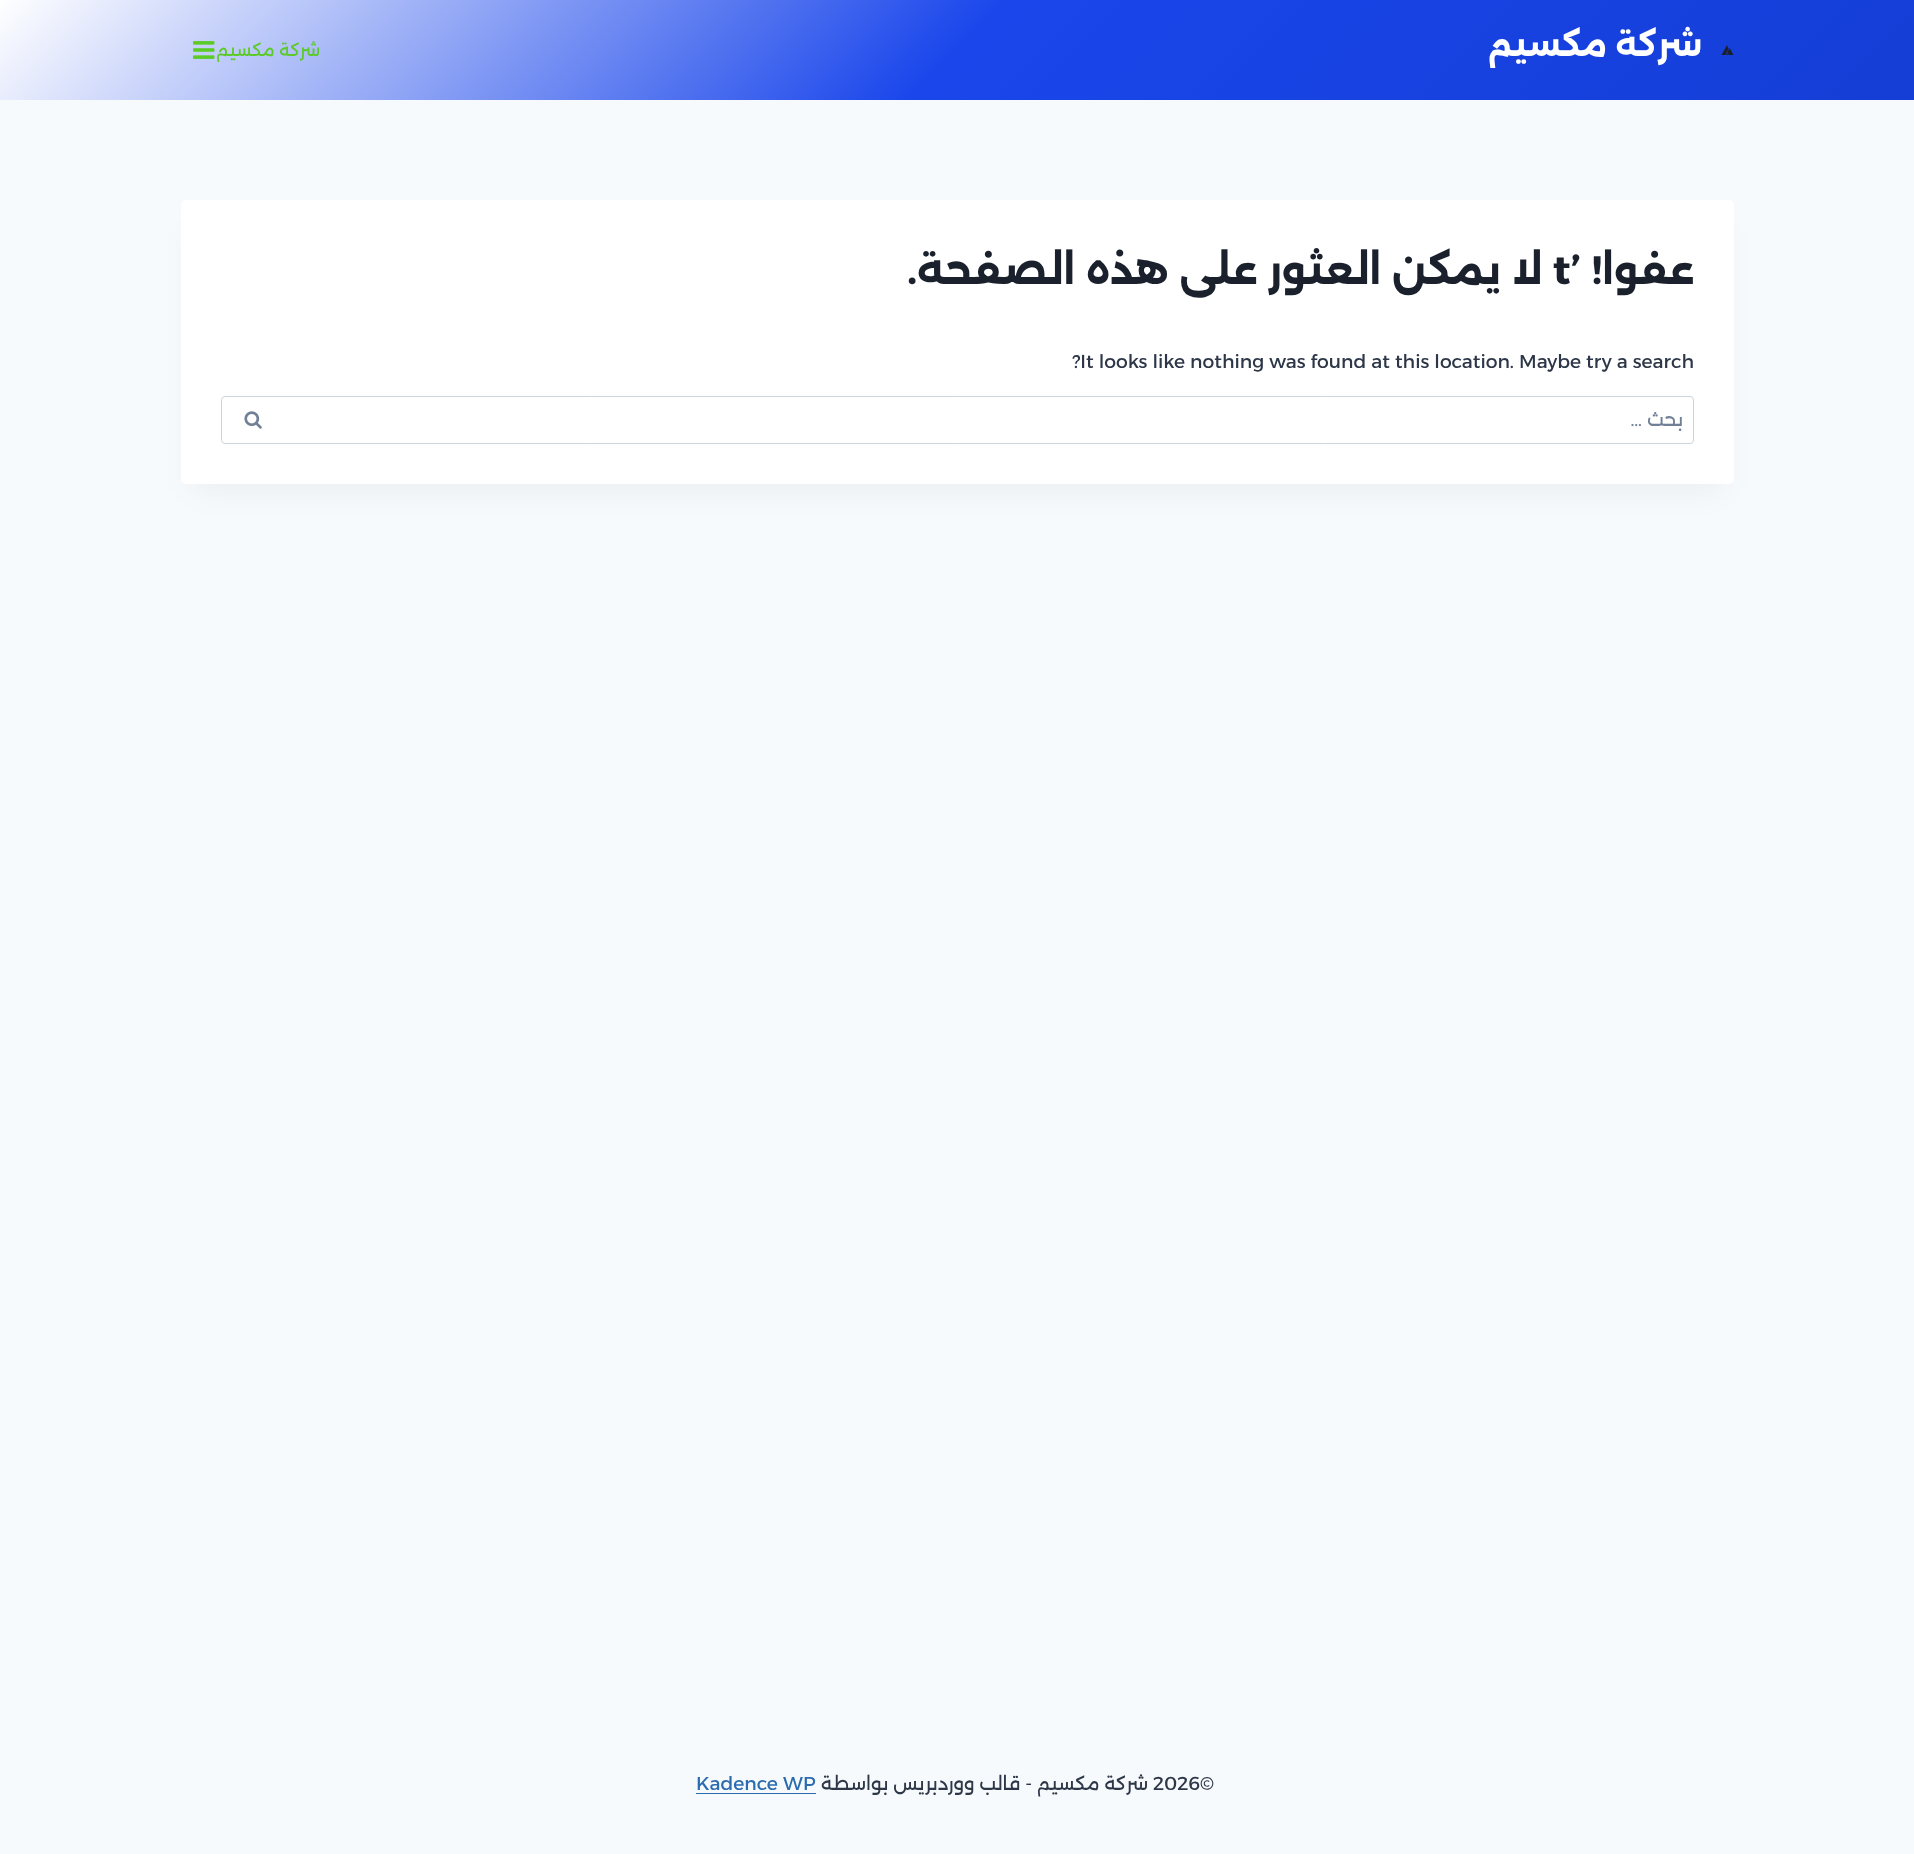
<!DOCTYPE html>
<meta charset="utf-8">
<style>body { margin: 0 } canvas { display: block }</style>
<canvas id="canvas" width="1914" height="1854"></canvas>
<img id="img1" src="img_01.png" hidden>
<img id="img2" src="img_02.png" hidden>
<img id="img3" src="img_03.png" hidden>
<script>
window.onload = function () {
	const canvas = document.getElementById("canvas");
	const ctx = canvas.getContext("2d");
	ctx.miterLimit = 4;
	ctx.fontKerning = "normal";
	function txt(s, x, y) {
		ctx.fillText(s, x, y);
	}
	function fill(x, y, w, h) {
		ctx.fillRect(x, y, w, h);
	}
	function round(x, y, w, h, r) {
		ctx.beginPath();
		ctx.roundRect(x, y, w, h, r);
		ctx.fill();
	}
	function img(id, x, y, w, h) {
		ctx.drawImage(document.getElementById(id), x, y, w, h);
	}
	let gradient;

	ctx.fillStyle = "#F7FAFC";
	fill(0, 0, 1914, 1854);
	gradient = ctx.createLinearGradient(454, -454, 1461, 554);
	gradient.addColorStop(0, "#FFFFFF");
	gradient.addColorStop(0.5, "#1A46EB");
	gradient.addColorStop(1, "#153ED6");
	ctx.fillStyle = gradient;
	fill(0, 0, 1914, 100);
	img("img1", 1721, 45, 13, 10);
	img("img2", 193, 41, 22, 18);
	ctx.fillStyle = "rgba(0, 0, 0, 0.05)";
	ctx.filter = "blur(15.5px)";
	ctx.beginPath();
	ctx.rect(194, 231, 1527, 259);
	ctx.fill();
	ctx.filter = "none";
	ctx.fillStyle = "#FFFFFF";
	round(181, 200, 1553, 284, 5);
	ctx.beginPath();
	ctx.roundRect(221.5, 396.5, 1472, 47, 3.5);
	ctx.strokeStyle = "#CBD5E0";
	ctx.stroke();
	img("img3", 244, 411, 18, 18);
	ctx.fillStyle = "#2B6CB0";
	fill(696, 1793, 120, 1);
	ctx.direction = "rtl";
	ctx.font = "bold 32.5px Alexandria";
	ctx.fillStyle = "#FFFFFF";
	txt("شركة مكسيم", 1702, 56);
	ctx.font = "17.5px Alexandria";
	ctx.fillStyle = "#5CCA27";
	txt("شركة مكسيم", 320, 56);
	ctx.font = "bold 40px Alexandria";
	ctx.fillStyle = "#1A202C";
	txt("عفوا! ’", 1694, 284);
	ctx.direction = "ltr";
	txt("t", 1553, 284);
	ctx.direction = "rtl";
	txt("لا يمكن العثور على هذه الصفحة.", 1543, 284);
	ctx.direction = "ltr";
	ctx.font = "18.75px Alexandria";
	ctx.fillStyle = "#2D3748";
	txt("?It looks like nothing was found at this location. Maybe try a search", 1072, 368);
	ctx.direction = "rtl";
	ctx.fillStyle = "#718096";
	txt("بحث …", 1683, 426);
	ctx.direction = "ltr";
	ctx.fillStyle = "#2D3748";
	txt("2026©", 1153, 1790);
	ctx.direction = "rtl";
	txt("شركة مكسيم - قالب ووردبريس بواسطة", 1148, 1790);
	ctx.direction = "ltr";
	ctx.fillStyle = "#2B6CB0";
	txt("Kadence WP", 696, 1790);
};
</script>
